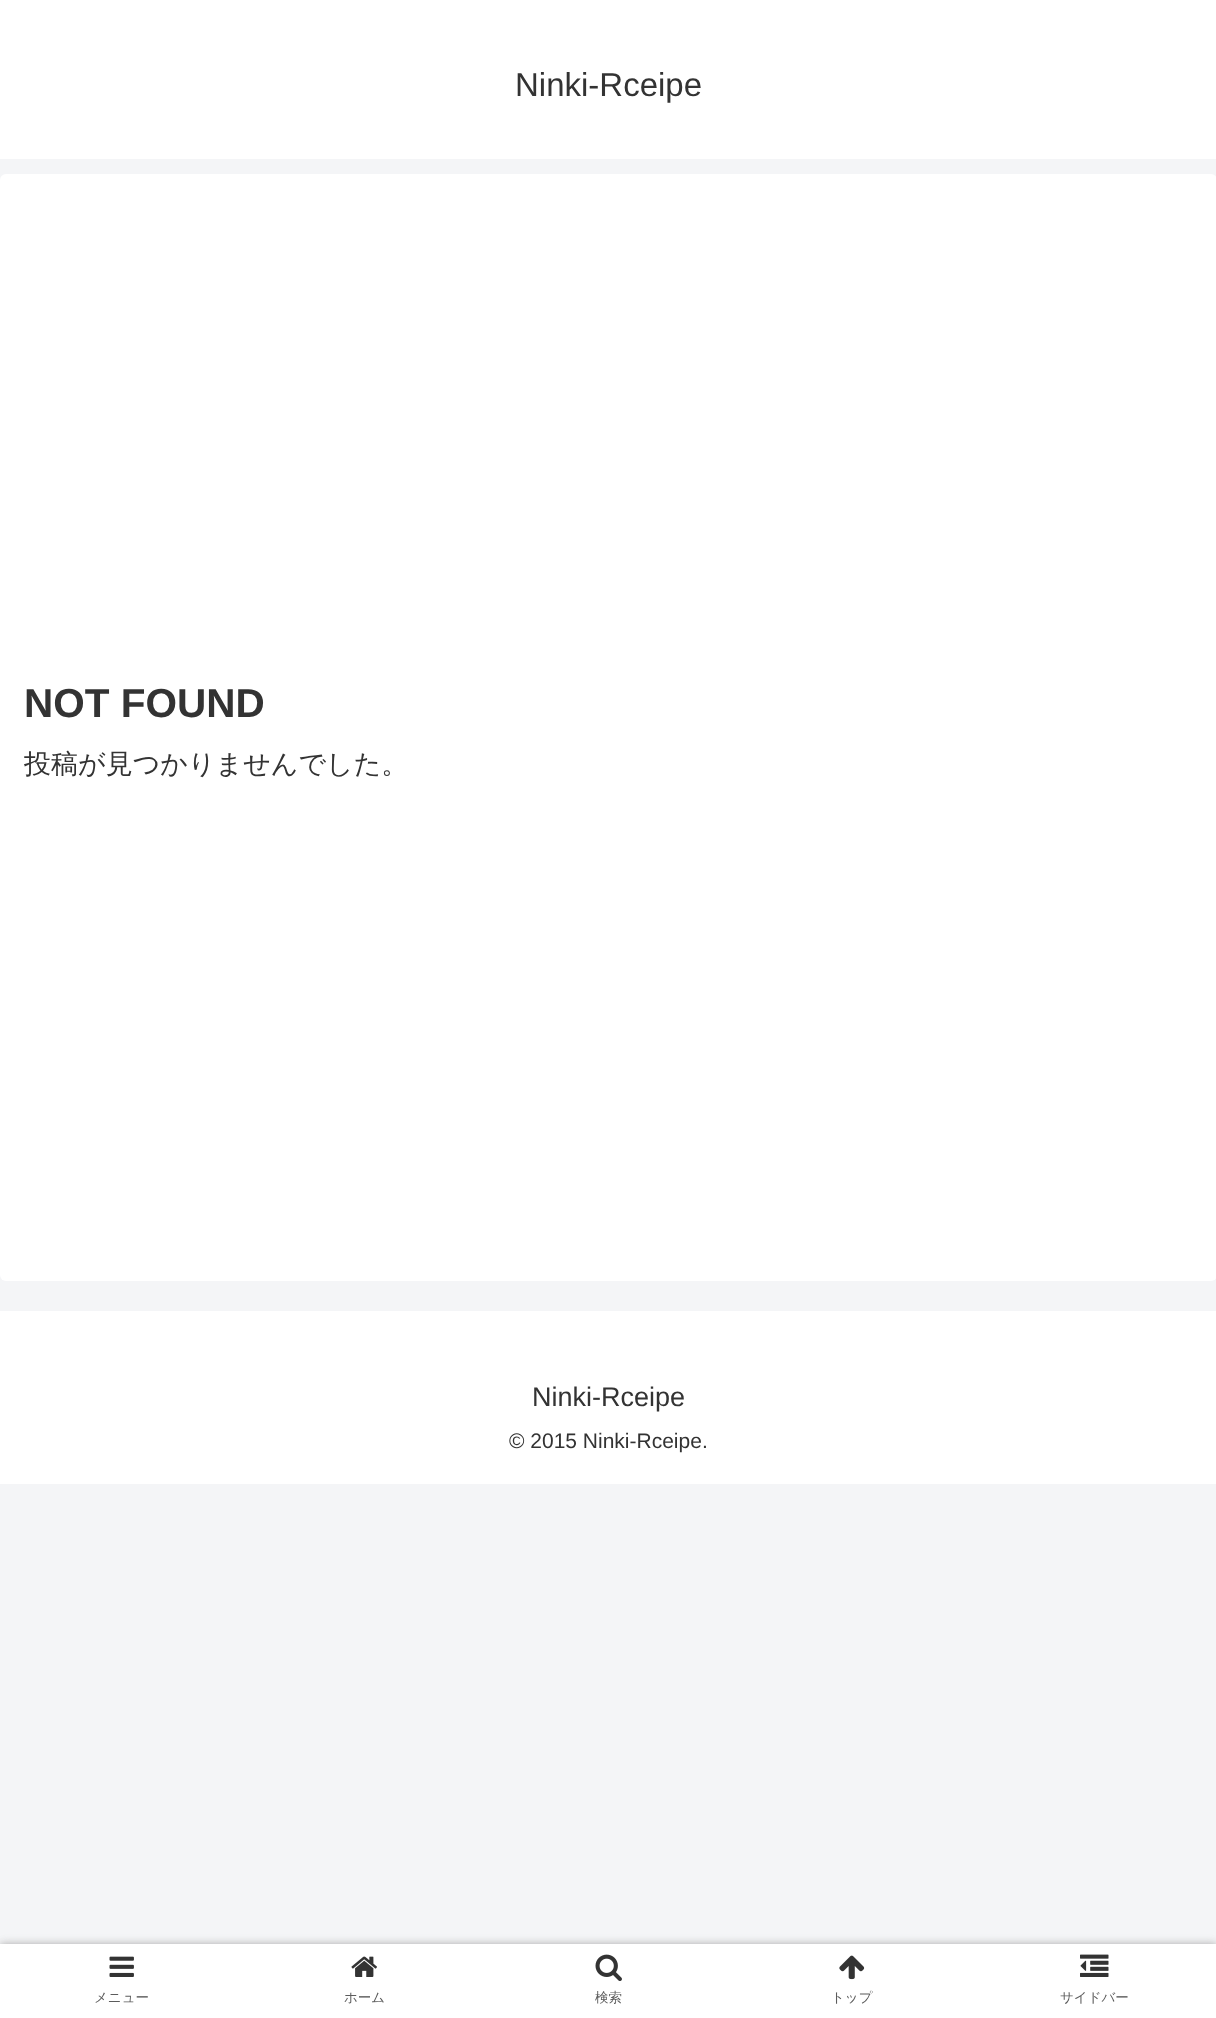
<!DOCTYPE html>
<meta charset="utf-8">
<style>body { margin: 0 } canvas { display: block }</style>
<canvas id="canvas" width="1216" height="2018"></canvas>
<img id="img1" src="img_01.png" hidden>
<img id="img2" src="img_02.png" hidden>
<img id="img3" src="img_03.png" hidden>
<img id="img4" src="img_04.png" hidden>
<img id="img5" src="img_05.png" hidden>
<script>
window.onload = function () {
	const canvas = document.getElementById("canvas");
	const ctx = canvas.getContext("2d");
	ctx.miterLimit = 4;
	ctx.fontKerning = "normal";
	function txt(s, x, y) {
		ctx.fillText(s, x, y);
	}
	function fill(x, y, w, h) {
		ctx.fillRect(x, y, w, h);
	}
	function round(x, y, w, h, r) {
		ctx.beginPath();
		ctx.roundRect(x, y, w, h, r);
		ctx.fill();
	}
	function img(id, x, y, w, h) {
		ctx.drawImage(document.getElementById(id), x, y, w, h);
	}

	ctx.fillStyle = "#F4F5F7";
	fill(0, 0, 1216, 2018);
	ctx.fillStyle = "#FFFFFF";
	fill(0, 0, 1216, 159);
	round(0, 174, 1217, 1107, 6);
	fill(0, 1311, 1216, 173);
	ctx.fillStyle = "#A9A9A9";
	ctx.filter = "blur(4px)";
	ctx.beginPath();
	ctx.rect(0, 1944, 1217, 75);
	ctx.fill();
	ctx.filter = "none";
	ctx.fillStyle = "#FFFFFF";
	fill(0, 1944, 1216, 74);
	img("img1", 109, 1956, 25, 21);
	img("img2", 351, 1956, 26, 21);
	img("img3", 595, 1954, 27, 27);
	img("img4", 839, 1955, 26, 25);
	img("img5", 1080, 1954, 29, 23);
	ctx.font = "33px Liberation Sans";
	ctx.fillStyle = "#333333";
	txt("Ninki-Rceipe", 515, 96);
	ctx.font = "bold 40.5px Liberation Sans";
	txt("NOT FOUND", 24, 717);
	ctx.font = "500 27px WenQuanYi Zen Hei";
	txt("投稿が見つかりませんでした。", 24, 773);
	ctx.font = "27px Liberation Sans";
	txt("Ninki-Rceipe", 532, 1406);
	ctx.font = "21px Liberation Sans";
	txt("© 2015 Ninki-Rceipe.", 509, 1448);
	ctx.font = "500 13.5px WenQuanYi Zen Hei";
	ctx.fillStyle = "#5C5C5C";
	txt("メニュー", 94, 2002);
	txt("ホーム", 344, 2002);
	txt("検索", 595, 2002);
	txt("トップ", 831, 2002);
	txt("サイドバー", 1060, 2002);
};
</script>
